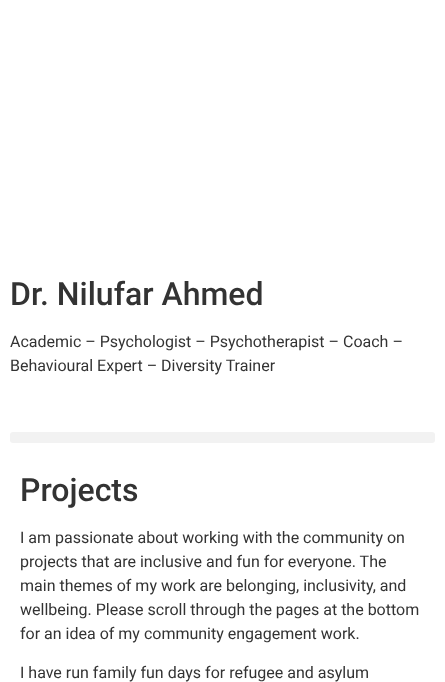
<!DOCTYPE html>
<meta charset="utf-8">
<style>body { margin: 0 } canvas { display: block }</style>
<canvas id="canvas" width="445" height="682"></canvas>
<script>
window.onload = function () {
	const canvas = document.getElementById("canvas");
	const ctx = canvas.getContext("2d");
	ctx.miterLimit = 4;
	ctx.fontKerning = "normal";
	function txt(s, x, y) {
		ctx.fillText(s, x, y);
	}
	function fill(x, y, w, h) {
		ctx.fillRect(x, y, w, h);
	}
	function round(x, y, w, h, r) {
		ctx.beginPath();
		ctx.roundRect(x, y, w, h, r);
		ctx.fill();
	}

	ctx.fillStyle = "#FFFFFF";
	fill(0, 0, 445, 682);
	ctx.fillStyle = "#F2F2F2";
	round(10, 432, 425, 11, 3);
	ctx.font = "500 32px Roboto";
	ctx.fillStyle = "#333333";
	txt("Dr. Nilufar Ahmed", 10, 305);
	ctx.font = "16px Roboto";
	txt("Academic – Psychologist – Psychotherapist – Coach –", 10, 347);
	txt("Behavioural Expert – Diversity Trainer", 10, 371);
	ctx.font = "500 32px Roboto";
	txt("Projects", 20, 501);
	ctx.font = "16px Roboto";
	txt("I am passionate about working with the community on", 20, 543);
	txt("projects that are inclusive and fun for everyone. The", 20, 567);
	txt("main themes of my work are belonging, inclusivity, and", 20, 591);
	txt("wellbeing. Please scroll through the pages at the bottom", 20, 615);
	txt("for an idea of my community engagement work.", 20, 639);
	txt("I have run family fun days for refugee and asylum", 20, 678);
};
</script>
